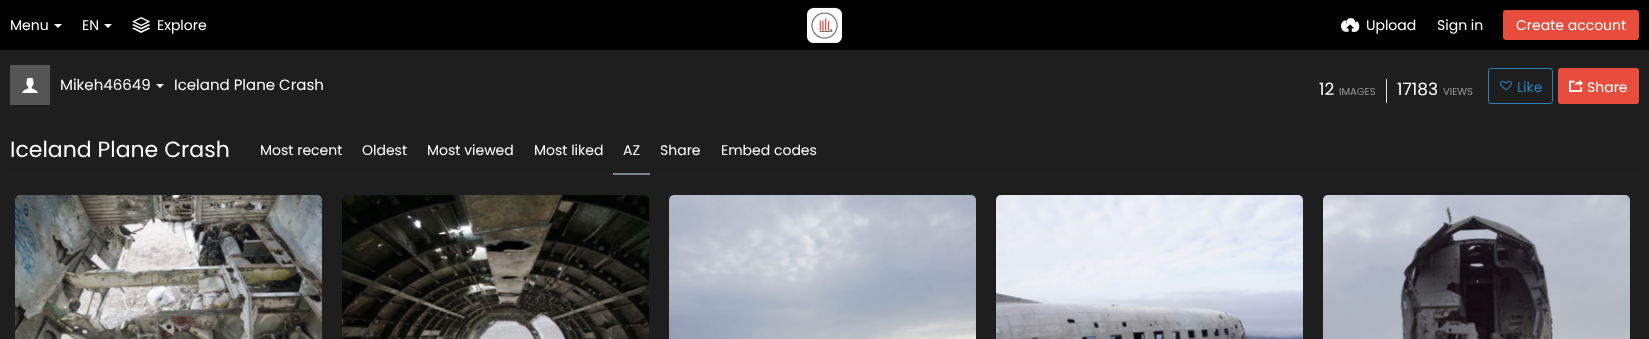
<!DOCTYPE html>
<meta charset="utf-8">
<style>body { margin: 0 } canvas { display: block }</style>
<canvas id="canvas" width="1649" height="339"></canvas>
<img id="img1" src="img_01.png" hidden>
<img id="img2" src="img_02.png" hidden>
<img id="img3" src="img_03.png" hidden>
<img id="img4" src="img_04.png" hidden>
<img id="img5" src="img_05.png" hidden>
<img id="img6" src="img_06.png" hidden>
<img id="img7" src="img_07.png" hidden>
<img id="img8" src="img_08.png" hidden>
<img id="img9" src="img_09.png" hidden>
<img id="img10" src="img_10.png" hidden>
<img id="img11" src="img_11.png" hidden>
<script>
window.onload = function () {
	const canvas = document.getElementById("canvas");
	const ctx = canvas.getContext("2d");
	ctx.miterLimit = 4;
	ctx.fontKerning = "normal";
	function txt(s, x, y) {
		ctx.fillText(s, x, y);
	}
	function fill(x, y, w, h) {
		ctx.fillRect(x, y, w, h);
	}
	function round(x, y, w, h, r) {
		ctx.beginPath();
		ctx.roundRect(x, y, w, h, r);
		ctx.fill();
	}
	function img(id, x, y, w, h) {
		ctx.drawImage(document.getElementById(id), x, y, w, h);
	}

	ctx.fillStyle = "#1E1E1E";
	fill(0, 0, 1649, 339);
	ctx.fillStyle = "#000000";
	fill(0, 0, 1649, 50);
	ctx.fillStyle = "#FFFFFF";
	ctx.beginPath();
	ctx.moveTo(54, 24);
	ctx.lineTo(62, 24);
	ctx.lineTo(58, 28);
	ctx.closePath();
	ctx.fill();
	ctx.beginPath();
	ctx.moveTo(104, 24);
	ctx.lineTo(112, 24);
	ctx.lineTo(108, 28);
	ctx.closePath();
	ctx.fill();
	img("img1", 132, 17, 19, 16);
	img("img2", 807, 7, 35, 36);
	img("img3", 1341, 18, 19, 14);
	ctx.fillStyle = "#E84C3D";
	round(1503, 10, 136, 30, 3);
	ctx.fillStyle = "#555555";
	fill(10, 65, 40, 40);
	img("img4", 22, 77, 16, 16);
	ctx.fillStyle = "#FFFFFF";
	ctx.beginPath();
	ctx.moveTo(156, 84);
	ctx.lineTo(164, 84);
	ctx.lineTo(160, 88);
	ctx.closePath();
	ctx.fill();
	ctx.fillStyle = "#E5E5E5";
	fill(1386, 79, 1, 24);
	ctx.beginPath();
	ctx.roundRect(1488.5, 68.5, 64, 35, 2.5);
	ctx.strokeStyle = "#2A80B9";
	ctx.stroke();
	img("img5", 1500, 80, 12, 11);
	ctx.fillStyle = "#E84C3D";
	round(1558, 68, 81, 36, 3);
	img("img6", 1569, 79, 14, 13);
	ctx.fillStyle = "#212121";
	fill(10, 174, 1629, 1);
	ctx.fillStyle = "#7A888C";
	fill(613, 173, 37, 2);
	img("img7", 15, 195, 307, 144);
	img("img8", 342, 195, 307, 144);
	img("img9", 669, 195, 307, 144);
	img("img10", 996, 195, 307, 144);
	img("img11", 1323, 195, 307, 144);
	ctx.font = "14px Poppins";
	ctx.fillStyle = "#FFFFFF";
	txt("Menu", 10, 30);
	txt("EN", 82, 30);
	txt("Explore", 157, 30);
	txt("Upload", 1366, 30);
	txt("Sign in", 1437, 30);
	txt("Create account", 1516, 30);
	ctx.font = "15px Poppins";
	txt("Mikeh46649", 60, 90);
	txt("Iceland Plane Crash", 174, 90);
	ctx.font = "17px Poppins";
	txt("12", 1319, 95);
	ctx.font = "10px Poppins";
	ctx.fillStyle = "#999999";
	txt("IMAGES", 1339, 95);
	ctx.font = "17px Poppins";
	ctx.fillStyle = "#FFFFFF";
	txt("17183", 1397, 95);
	ctx.font = "10px Poppins";
	ctx.fillStyle = "#999999";
	txt("VIEWS", 1443, 95);
	ctx.font = "14px Poppins";
	ctx.fillStyle = "#2A80B9";
	txt("Like", 1517, 92);
	ctx.fillStyle = "#FFFFFF";
	txt("Share", 1587, 92);
	ctx.font = "22px Poppins";
	txt("Iceland Plane Crash", 10, 157);
	ctx.font = "14px Poppins";
	txt("Most recent", 260, 155);
	txt("Oldest", 362, 155);
	txt("Most viewed", 427, 155);
	txt("Most liked", 534, 155);
	txt("AZ", 623, 155);
	txt("Share", 660, 155);
	txt("Embed codes", 721, 155);
};
</script>
